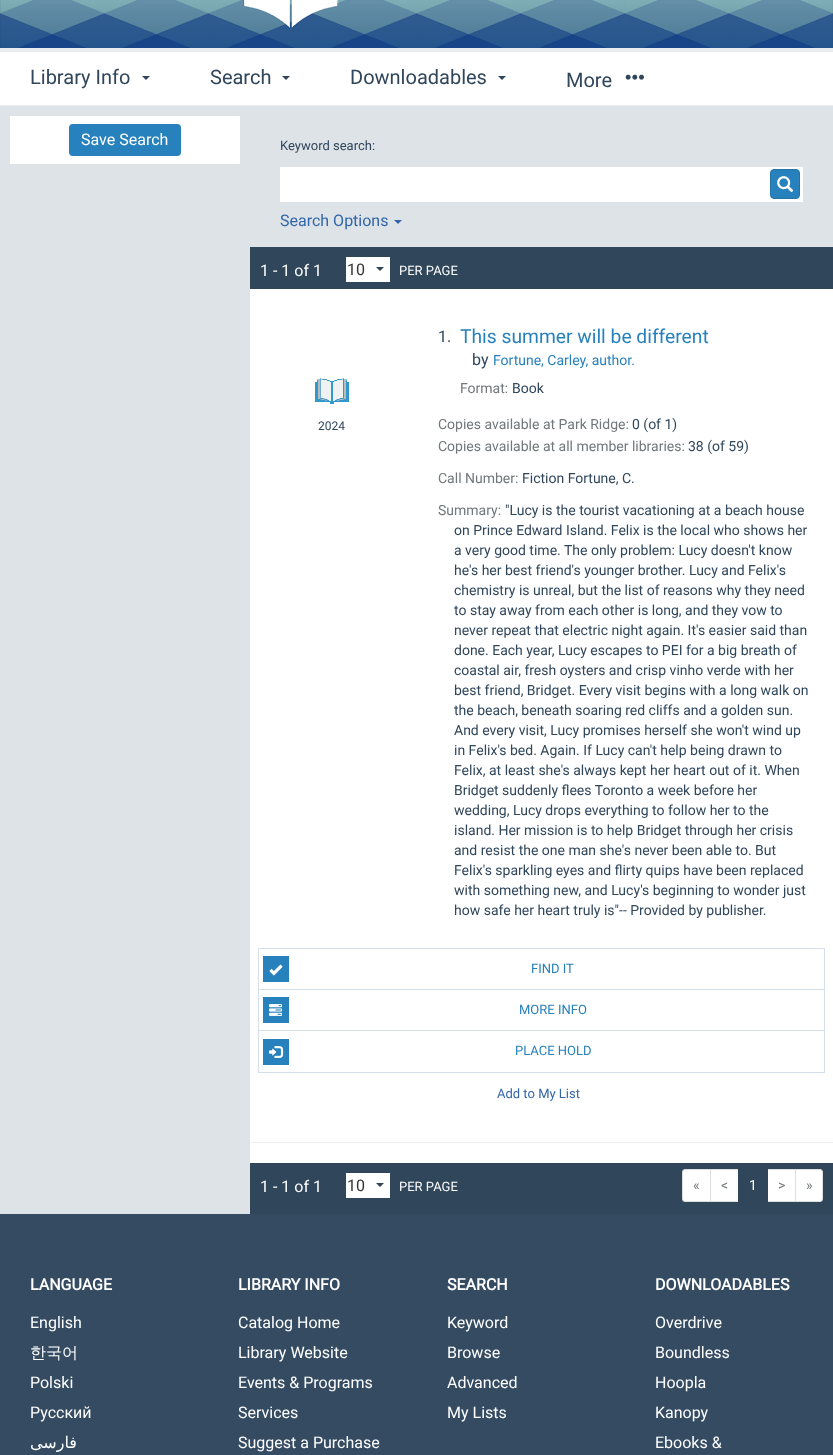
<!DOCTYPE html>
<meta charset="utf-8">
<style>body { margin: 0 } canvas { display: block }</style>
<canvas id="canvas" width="833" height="1455"></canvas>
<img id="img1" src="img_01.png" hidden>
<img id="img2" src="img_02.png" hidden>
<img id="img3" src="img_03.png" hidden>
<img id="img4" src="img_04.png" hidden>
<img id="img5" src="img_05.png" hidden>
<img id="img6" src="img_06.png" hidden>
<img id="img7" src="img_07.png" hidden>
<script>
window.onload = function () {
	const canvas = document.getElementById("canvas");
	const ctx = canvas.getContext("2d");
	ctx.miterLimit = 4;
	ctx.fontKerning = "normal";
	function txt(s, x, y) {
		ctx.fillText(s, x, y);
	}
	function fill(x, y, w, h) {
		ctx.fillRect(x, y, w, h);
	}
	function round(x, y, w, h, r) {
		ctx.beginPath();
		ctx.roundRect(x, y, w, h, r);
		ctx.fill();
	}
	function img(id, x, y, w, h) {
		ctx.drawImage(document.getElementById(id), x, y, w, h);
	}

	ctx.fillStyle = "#EAEDF0";
	fill(0, 0, 833, 1455);
	img("img1", 0, 0, 833, 48);
	ctx.fillStyle = "#FFFFFF";
	fill(0, 52, 833, 53);
	ctx.fillStyle = "#30465B";
	ctx.beginPath();
	ctx.moveTo(142, 76);
	ctx.lineTo(150, 76);
	ctx.lineTo(146, 80);
	ctx.closePath();
	ctx.fill();
	ctx.beginPath();
	ctx.moveTo(282, 76);
	ctx.lineTo(290, 76);
	ctx.lineTo(286, 80);
	ctx.closePath();
	ctx.fill();
	ctx.beginPath();
	ctx.moveTo(498, 76);
	ctx.lineTo(506, 76);
	ctx.lineTo(502, 80);
	ctx.closePath();
	ctx.fill();
	img("img2", 625, 74, 19, 6);
	ctx.fillStyle = "#DEE3E8";
	fill(0, 106, 250, 1108);
	ctx.fillStyle = "#FFFFFF";
	fill(10, 116, 230, 48);
	ctx.fillStyle = "#2781BC";
	round(69, 124, 112, 32, 4);
	ctx.fillStyle = "#FFFFFF";
	fill(250, 289, 583, 874);
	ctx.fillStyle = "#DEE3E8";
	fill(250, 106, 583, 141);
	ctx.fillStyle = "#FFFFFF";
	fill(280, 167, 523, 35);
	ctx.fillStyle = "#2781BC";
	ctx.beginPath();
	ctx.roundRect(770.5, 169.5, 29, 29, 3.5);
	ctx.fill();
	ctx.strokeStyle = "#2373A7";
	ctx.stroke();
	img("img3", 777, 176, 17, 17);
	ctx.fillStyle = "#3166AA";
	ctx.beginPath();
	ctx.moveTo(394, 220);
	ctx.lineTo(402, 220);
	ctx.lineTo(398, 224);
	ctx.closePath();
	ctx.fill();
	ctx.fillStyle = "#30465B";
	fill(250, 247, 583, 42);
	ctx.fillStyle = "#FFFFFF";
	fill(346, 257, 44, 25);
	ctx.fillStyle = "#30465B";
	ctx.beginPath();
	ctx.moveTo(376, 267);
	ctx.lineTo(384, 267);
	ctx.lineTo(380, 271);
	ctx.closePath();
	ctx.fill();
	img("img4", 315, 378, 34, 26);
	ctx.fillStyle = "#D4DFE9";
	fill(258, 1072, 567, 1);
	fill(258, 948, 567, 1);
	fill(824, 948, 1, 41);
	fill(258, 948, 1, 41);
	ctx.fillStyle = "#2781BC";
	fill(263, 956, 26, 26);
	img("img5", 269, 964, 14, 12);
	ctx.fillStyle = "#D4DFE9";
	fill(258, 989, 567, 1);
	fill(824, 989, 1, 41);
	fill(258, 989, 1, 41);
	ctx.fillStyle = "#2781BC";
	fill(263, 997, 26, 26);
	img("img6", 269, 1004, 13, 12);
	ctx.fillStyle = "#D4DFE9";
	fill(258, 1030, 567, 1);
	fill(824, 1030, 1, 42);
	fill(258, 1030, 1, 42);
	ctx.fillStyle = "#2781BC";
	fill(263, 1039, 26, 26);
	img("img7", 269, 1046, 15, 12);
	ctx.fillStyle = "#EEEEEE";
	fill(250, 1142, 583, 1);
	ctx.fillStyle = "#30465B";
	fill(250, 1163, 583, 51);
	ctx.fillStyle = "#FFFFFF";
	fill(346, 1173, 44, 25);
	ctx.fillStyle = "#30465B";
	ctx.beginPath();
	ctx.moveTo(376, 1183);
	ctx.lineTo(384, 1183);
	ctx.lineTo(380, 1187);
	ctx.closePath();
	ctx.fill();
	ctx.fillStyle = "#FFFFFF";
	ctx.beginPath();
	ctx.roundRect(682.5, 1169.5, 28, 32, [2.5, 0, 0, 2.5]);
	ctx.fill();
	ctx.strokeStyle = "#DDDDDD";
	ctx.stroke();
	ctx.beginPath();
	ctx.rect(710.5, 1169.5, 28, 32);
	ctx.fill();
	ctx.stroke();
	ctx.beginPath();
	ctx.rect(767.5, 1169.5, 28, 32);
	ctx.fill();
	ctx.stroke();
	ctx.fillStyle = "#30465B";
	fill(738, 1169, 30, 33);
	ctx.fillStyle = "#FFFFFF";
	ctx.beginPath();
	ctx.roundRect(795.5, 1169.5, 27, 32, [0, 2.5, 2.5, 0]);
	ctx.fill();
	ctx.stroke();
	ctx.fillStyle = "#344B62";
	fill(0, 1214, 833, 241);
	ctx.font = "20px Roboto";
	ctx.fillStyle = "#30465B";
	txt("Library Info", 30, 84);
	txt("Search", 210, 84);
	txt("Downloadables", 350, 84);
	txt("More", 566, 87);
	ctx.font = "16px Roboto";
	ctx.fillStyle = "#FFFFFF";
	txt("Save Search", 81, 145);
	ctx.font = "13px Roboto";
	ctx.fillStyle = "#30465B";
	txt("Keyword search:", 280, 150);
	ctx.font = "16px Roboto";
	ctx.fillStyle = "#3166AA";
	txt("Search Options", 280, 226);
	ctx.fillStyle = "#FFFFFF";
	txt("1 - 1 of 1", 260, 276);
	ctx.fillStyle = "#333333";
	txt("10", 347, 275);
	ctx.font = "13px Roboto";
	ctx.fillStyle = "#FFFFFF";
	txt("PER PAGE", 399, 275);
	ctx.font = "12px Roboto";
	ctx.fillStyle = "#30465B";
	txt("2024", 318, 430);
	ctx.font = "16px Roboto";
	txt("1.", 438, 342);
	ctx.font = "19.25px Roboto";
	ctx.fillStyle = "#2781BC";
	txt("This summer will be different", 460, 343);
	ctx.font = "16px Roboto";
	ctx.fillStyle = "#30465B";
	txt("by", 472, 365);
	ctx.font = "14px Roboto";
	ctx.fillStyle = "#2781BC";
	txt("Fortune, Carley, author.", 493, 365);
	ctx.fillStyle = "#71777A";
	txt("Format:", 460, 393);
	ctx.fillStyle = "#30465B";
	txt("Book", 512, 393);
	ctx.fillStyle = "#71777A";
	txt("Copies available at Park Ridge:", 438, 429);
	ctx.fillStyle = "#30465B";
	txt("0 (of 1)", 632, 429);
	ctx.fillStyle = "#71777A";
	txt("Copies available at all member libraries:", 438, 451);
	ctx.fillStyle = "#30465B";
	txt("38 (of 59)", 688, 451);
	ctx.fillStyle = "#71777A";
	txt("Call Number:", 438, 483);
	ctx.fillStyle = "#30465B";
	txt("Fiction Fortune, C.", 522, 483);
	ctx.fillStyle = "#71777A";
	txt("Summary:", 438, 515);
	ctx.fillStyle = "#30465B";
	txt("\"Lucy is the tourist vacationing at a beach house", 505, 515);
	txt("on Prince Edward Island. Felix is the local who shows her", 454, 535);
	txt("a very good time. The only problem: Lucy doesn't know", 454, 555);
	txt("he's her best friend's younger brother. Lucy and Felix's", 454, 575);
	txt("chemistry is unreal, but the list of reasons why they need", 454, 595);
	txt("to stay away from each other is long, and they vow to", 454, 615);
	txt("never repeat that electric night again. It's easier said than", 454, 635);
	txt("done. Each year, Lucy escapes to PEI for a big breath of", 454, 655);
	txt("coastal air, fresh oysters and crisp vinho verde with her", 454, 675);
	txt("best friend, Bridget. Every visit begins with a long walk on", 454, 695);
	txt("the beach, beneath soaring red cliffs and a golden sun.", 454, 715);
	txt("And every visit, Lucy promises herself she won't wind up", 454, 735);
	txt("in Felix's bed. Again. If Lucy can't help being drawn to", 454, 755);
	txt("Felix, at least she's always kept her heart out of it. When", 454, 775);
	txt("Bridget suddenly flees Toronto a week before her", 454, 795);
	txt("wedding, Lucy drops everything to follow her to the", 454, 815);
	txt("island. Her mission is to help Bridget through her crisis", 454, 835);
	txt("and resist the one man she's never been able to. But", 454, 855);
	txt("Felix's sparkling eyes and flirty quips have been replaced", 454, 875);
	txt("with something new, and Lucy's beginning to wonder just", 454, 895);
	txt("how safe her heart truly is\"-- Provided by publisher.", 454, 915);
	ctx.font = "13px Roboto";
	ctx.fillStyle = "#2781BC";
	txt("FIND IT", 531, 973);
	txt("MORE INFO", 519, 1014);
	txt("PLACE HOLD", 515, 1055);
	ctx.fillStyle = "#3166AA";
	txt("Add to My List", 497, 1098);
	ctx.font = "16px Roboto";
	ctx.fillStyle = "#FFFFFF";
	txt("1 - 1 of 1", 260, 1192);
	ctx.fillStyle = "#333333";
	txt("10", 347, 1191);
	ctx.font = "13px Roboto";
	ctx.fillStyle = "#FFFFFF";
	txt("PER PAGE", 399, 1191);
	ctx.font = "14px Roboto";
	ctx.fillStyle = "#71777A";
	txt("«", 693, 1190);
	txt("<", 721, 1190);
	ctx.fillStyle = "#FFFFFF";
	txt("1", 749, 1190);
	ctx.fillStyle = "#71777A";
	txt(">", 778, 1190);
	txt("»", 806, 1190);
	ctx.font = "bold 16px Roboto";
	ctx.fillStyle = "#FFFFFF";
	txt("LANGUAGE", 30, 1290);
	ctx.font = "16px Roboto";
	txt("English", 30, 1328);
	ctx.font = "500 16px WenQuanYi Zen Hei";
	txt("한국어", 30, 1358);
	ctx.font = "16px Roboto";
	txt("Polski", 30, 1388);
	txt("Русский", 30, 1418);
	ctx.direction = "rtl";
	ctx.font = "16px DejaVu Sans";
	txt("فارسی", 77, 1448);
	ctx.direction = "ltr";
	ctx.font = "bold 16px Roboto";
	txt("LIBRARY INFO", 238, 1290);
	ctx.font = "16px Roboto";
	txt("Catalog Home", 238, 1328);
	txt("Library Website", 238, 1358);
	txt("Events & Programs", 238, 1388);
	txt("Services", 238, 1418);
	txt("Suggest a Purchase", 238, 1448);
	ctx.font = "bold 16px Roboto";
	txt("SEARCH", 447, 1290);
	ctx.font = "16px Roboto";
	txt("Keyword", 447, 1328);
	txt("Browse", 447, 1358);
	txt("Advanced", 447, 1388);
	txt("My Lists", 447, 1418);
	ctx.font = "bold 16px Roboto";
	txt("DOWNLOADABLES", 655, 1290);
	ctx.font = "16px Roboto";
	txt("Overdrive", 655, 1328);
	txt("Boundless", 655, 1358);
	txt("Hoopla", 655, 1388);
	txt("Kanopy", 655, 1418);
	txt("Ebooks &", 655, 1448);
};
</script>
